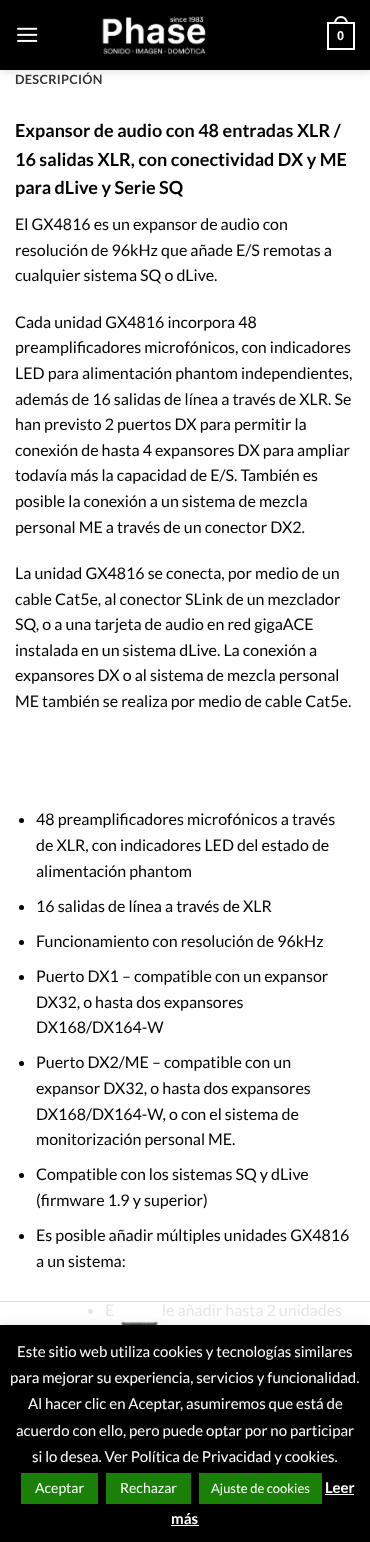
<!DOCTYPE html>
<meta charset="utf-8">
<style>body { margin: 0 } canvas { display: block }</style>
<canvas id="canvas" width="370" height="1542"></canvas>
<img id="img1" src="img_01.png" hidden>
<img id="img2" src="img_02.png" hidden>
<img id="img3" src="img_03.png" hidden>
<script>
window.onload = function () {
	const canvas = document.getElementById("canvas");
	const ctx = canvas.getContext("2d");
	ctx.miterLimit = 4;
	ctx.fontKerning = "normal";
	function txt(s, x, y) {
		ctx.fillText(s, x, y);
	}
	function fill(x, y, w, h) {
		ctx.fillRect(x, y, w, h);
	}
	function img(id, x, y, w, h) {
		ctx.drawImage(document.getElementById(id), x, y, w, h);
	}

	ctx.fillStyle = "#FFFFFF";
	fill(0, 0, 370, 1542);
	ctx.fillStyle = "rgba(0, 0, 0, 0.15)";
	ctx.filter = "blur(5px)";
	ctx.beginPath();
	ctx.rect(1, 1, 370, 70);
	ctx.fill();
	ctx.filter = "none";
	ctx.fillStyle = "#000000";
	fill(0, 0, 370, 70);
	img("img1", 17, 27, 21, 15);
	img("img2", 102, 16, 104, 39);
	ctx.strokeStyle = "#FFFFFF";
	ctx.lineWidth = 2;
	ctx.strokeRect(328, 23, 26, 26);
	ctx.fillStyle = "#FFFFFF";
	ctx.beginPath();
	ctx.moveTo(341, 16);
	ctx.bezierCurveTo(345.5, 16, 348, 20, 348, 24);
	ctx.lineTo(334, 24);
	ctx.bezierCurveTo(334, 20, 336.5, 16, 341, 16);
	ctx.closePath();
	ctx.moveTo(341, 18);
	ctx.bezierCurveTo(344.5, 18, 346, 21, 346, 24);
	ctx.lineTo(336, 24);
	ctx.bezierCurveTo(336, 21, 337.5, 18, 341, 18);
	ctx.closePath();
	ctx.fill("evenodd");
	ctx.fillStyle = "#000000";
	ctx.beginPath();
	ctx.arc(21.5, 820.5, 2.5, 0, Math.PI * 2);
	ctx.fill();
	ctx.beginPath();
	ctx.arc(21.5, 907.5, 2.5, 0, Math.PI * 2);
	ctx.fill();
	ctx.beginPath();
	ctx.arc(21.5, 942.5, 2.5, 0, Math.PI * 2);
	ctx.fill();
	ctx.beginPath();
	ctx.arc(21.5, 977.5, 2.5, 0, Math.PI * 2);
	ctx.fill();
	ctx.beginPath();
	ctx.arc(21.5, 1063.5, 2.5, 0, Math.PI * 2);
	ctx.fill();
	ctx.beginPath();
	ctx.arc(21.5, 1175.5, 2.5, 0, Math.PI * 2);
	ctx.fill();
	ctx.beginPath();
	ctx.arc(21.5, 1236.5, 2.5, 0, Math.PI * 2);
	ctx.fill();
	ctx.fillStyle = "#E6E6E6";
	ctx.beginPath();
	ctx.arc(90.5, 1311.5, 2.5, 0, Math.PI * 2);
	ctx.fill();
	ctx.fillStyle = "#DDDDDD";
	fill(0, 1301, 370, 1);
	img("img3", 117, 1308, 45, 17);
	ctx.fillStyle = "rgba(172, 171, 171, 0.3)";
	ctx.filter = "blur(5px)";
	ctx.beginPath();
	ctx.rect(0, 1324, 370, 217);
	ctx.fill();
	ctx.filter = "none";
	ctx.fillStyle = "#000000";
	fill(0, 1325, 370, 217);
	ctx.fillStyle = "#1A8007";
	fill(21, 1473, 77, 31);
	fill(106, 1473, 85, 31);
	fill(199, 1473, 123, 31);
	ctx.fillStyle = "#FFFFFF";
	fill(325, 1494, 29, 1);
	fill(171, 1525, 28, 1);
	ctx.font = "bold 12.75px Liberation Sans";
	txt("0", 337, 40);
	ctx.letterSpacing = "0.25px";
	ctx.font = "bold 12.75px Lato";
	ctx.fillStyle = "#353535";
	txt("DESCRIPCIÓN", 15, 84);
	ctx.letterSpacing = "0px";
	ctx.font = "bold 18px Lato";
	ctx.fillStyle = "#000000";
	txt("Expansor de audio con 48 entradas XLR /", 15, 137);
	txt("16 salidas XLR, con conectividad DX y ME", 15, 166);
	txt("para dLive y Serie SQ", 15, 194);
	ctx.font = "16px Lato";
	txt("El GX4816 es un expansor de audio con", 15, 230);
	txt("resolución de 96kHz que añade E/S remotas a", 15, 256);
	txt("cualquier sistema SQ o dLive.", 15, 281);
	txt("Cada unidad GX4816 incorpora 48", 15, 328);
	txt("preamplificadores microfónicos, con indicadores", 15, 353);
	txt("LED para alimentación phantom independientes,", 15, 379);
	txt("además de 16 salidas de línea a través de XLR. Se", 15, 405);
	txt("han previsto 2 puertos DX para permitir la", 15, 430);
	txt("conexión de hasta 4 expansores DX para ampliar", 15, 456);
	txt("todavía más la capacidad de E/S. También es", 15, 481);
	txt("posible la conexión a un sistema de mezcla", 15, 507);
	txt("personal ME a través de un conector DX2.", 15, 533);
	txt("La unidad GX4816 se conecta, por medio de un", 15, 579);
	txt("cable Cat5e, al conector SLink de un mezclador", 15, 605);
	txt("SQ, o a una tarjeta de audio en red gigaACE", 15, 630);
	txt("instalada en un sistema dLive. La conexión a", 15, 656);
	txt("expansores DX o al sistema de mezcla personal", 15, 681);
	txt("ME también se realiza por medio de cable Cat5e.", 15, 707);
	txt("48 preamplificadores microfónicos a través", 36, 825);
	txt("de XLR, con indicadores LED del estado de", 36, 851);
	txt("alimentación phantom", 36, 877);
	txt("16 salidas de línea a través de XLR", 36, 912);
	txt("Funcionamiento con resolución de 96kHz", 36, 947);
	txt("Puerto DX1 – compatible con un expansor", 36, 982);
	txt("DX32, o hasta dos expansores", 36, 1008);
	txt("DX168/DX164-W", 36, 1033);
	txt("Puerto DX2/ME – compatible con un", 36, 1068);
	txt("expansor DX32, o hasta dos expansores", 36, 1094);
	txt("DX168/DX164-W, o con el sistema de", 36, 1120);
	txt("monitorización personal ME.", 36, 1145);
	txt("Compatible con los sistemas SQ y dLive", 36, 1180);
	txt("(firmware 1.9 y superior)", 36, 1206);
	txt("Es posible añadir múltiples unidades GX4816", 36, 1241);
	txt("a un sistema:", 36, 1267);
	ctx.fillStyle = "#E6E6E6";
	txt("E", 105, 1316);
	txt("le añadir hasta 2 unidades", 162, 1316);
	ctx.font = "15px Lato";
	ctx.fillStyle = "#FFFFFF";
	txt("Este sitio web utiliza cookies y tecnologías similares", 17, 1357);
	txt("para mejorar su experiencia, servicios y funcionalidad.", 10, 1383);
	txt("Al hacer clic en Aceptar, asumiremos que está de", 28, 1409);
	txt("acuerdo con ello, pero puede optar por no participar", 16, 1436);
	txt("si lo desea. Ver Política de Privacidad y cookies.", 32, 1462);
	ctx.font = "14px Lato";
	txt("Aceptar", 35, 1493);
	txt("Rechazar", 120, 1493);
	ctx.font = "13px Lato";
	txt("Ajuste de cookies", 211, 1493);
	ctx.font = "bold 15px Lato";
	txt("Leer", 325, 1493);
	txt("más", 171, 1524);
};
</script>
